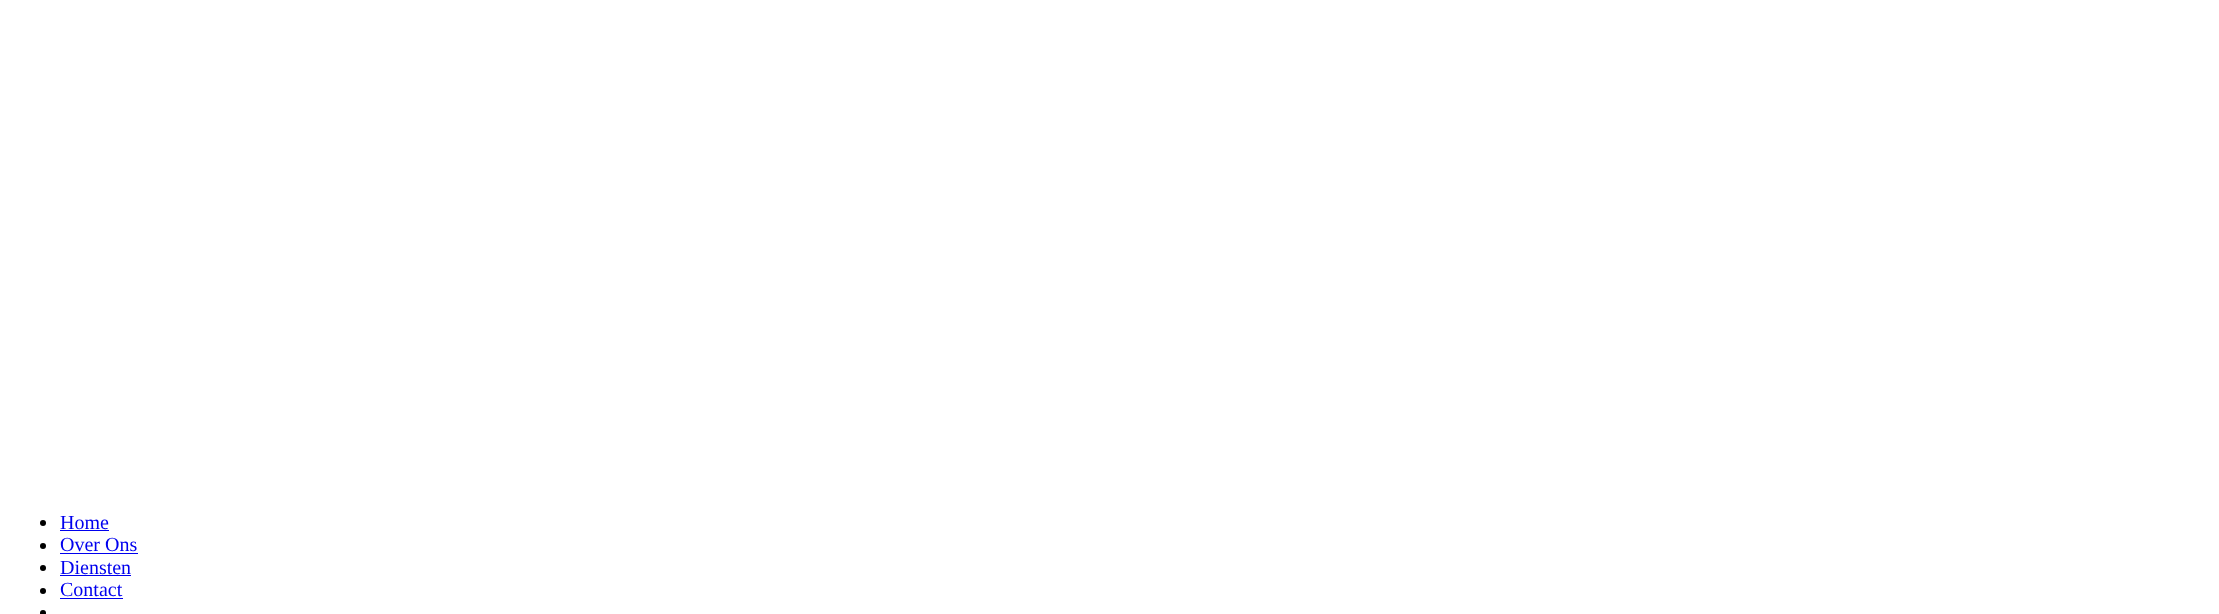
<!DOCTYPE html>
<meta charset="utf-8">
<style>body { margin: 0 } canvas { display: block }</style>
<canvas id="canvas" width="2219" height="614"></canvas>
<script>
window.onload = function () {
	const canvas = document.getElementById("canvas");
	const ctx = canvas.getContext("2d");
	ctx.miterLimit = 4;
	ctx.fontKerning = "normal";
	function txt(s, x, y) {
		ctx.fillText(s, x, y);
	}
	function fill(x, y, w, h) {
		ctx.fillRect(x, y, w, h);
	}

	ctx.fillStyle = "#FFFFFF";
	fill(0, 0, 2219, 614);
	ctx.fillStyle = "#000000";
	ctx.beginPath();
	ctx.arc(43, 523, 3, 0, Math.PI * 2);
	ctx.fill();
	ctx.fillStyle = "#0000EE";
	fill(60, 530, 49, 1);
	ctx.fillStyle = "#000000";
	ctx.beginPath();
	ctx.arc(43, 546, 3, 0, Math.PI * 2);
	ctx.fill();
	ctx.fillStyle = "#0000EE";
	fill(60, 553, 78, 1);
	ctx.fillStyle = "#000000";
	ctx.beginPath();
	ctx.arc(43, 568, 3, 0, Math.PI * 2);
	ctx.fill();
	ctx.fillStyle = "#0000EE";
	fill(60, 575, 71, 1);
	ctx.fillStyle = "#000000";
	ctx.beginPath();
	ctx.arc(43, 591, 3, 0, Math.PI * 2);
	ctx.fill();
	ctx.fillStyle = "#0000EE";
	fill(60, 598, 63, 1);
	ctx.fillStyle = "#000000";
	ctx.beginPath();
	ctx.arc(43, 613, 3, 0, Math.PI * 2);
	ctx.fill();
	ctx.font = "20px Liberation Serif";
	ctx.fillStyle = "#0000EE";
	txt("Home", 60, 529);
	txt("Over Ons", 60, 551);
	txt("Diensten", 60, 574);
	txt("Contact", 60, 596);
};
</script>
